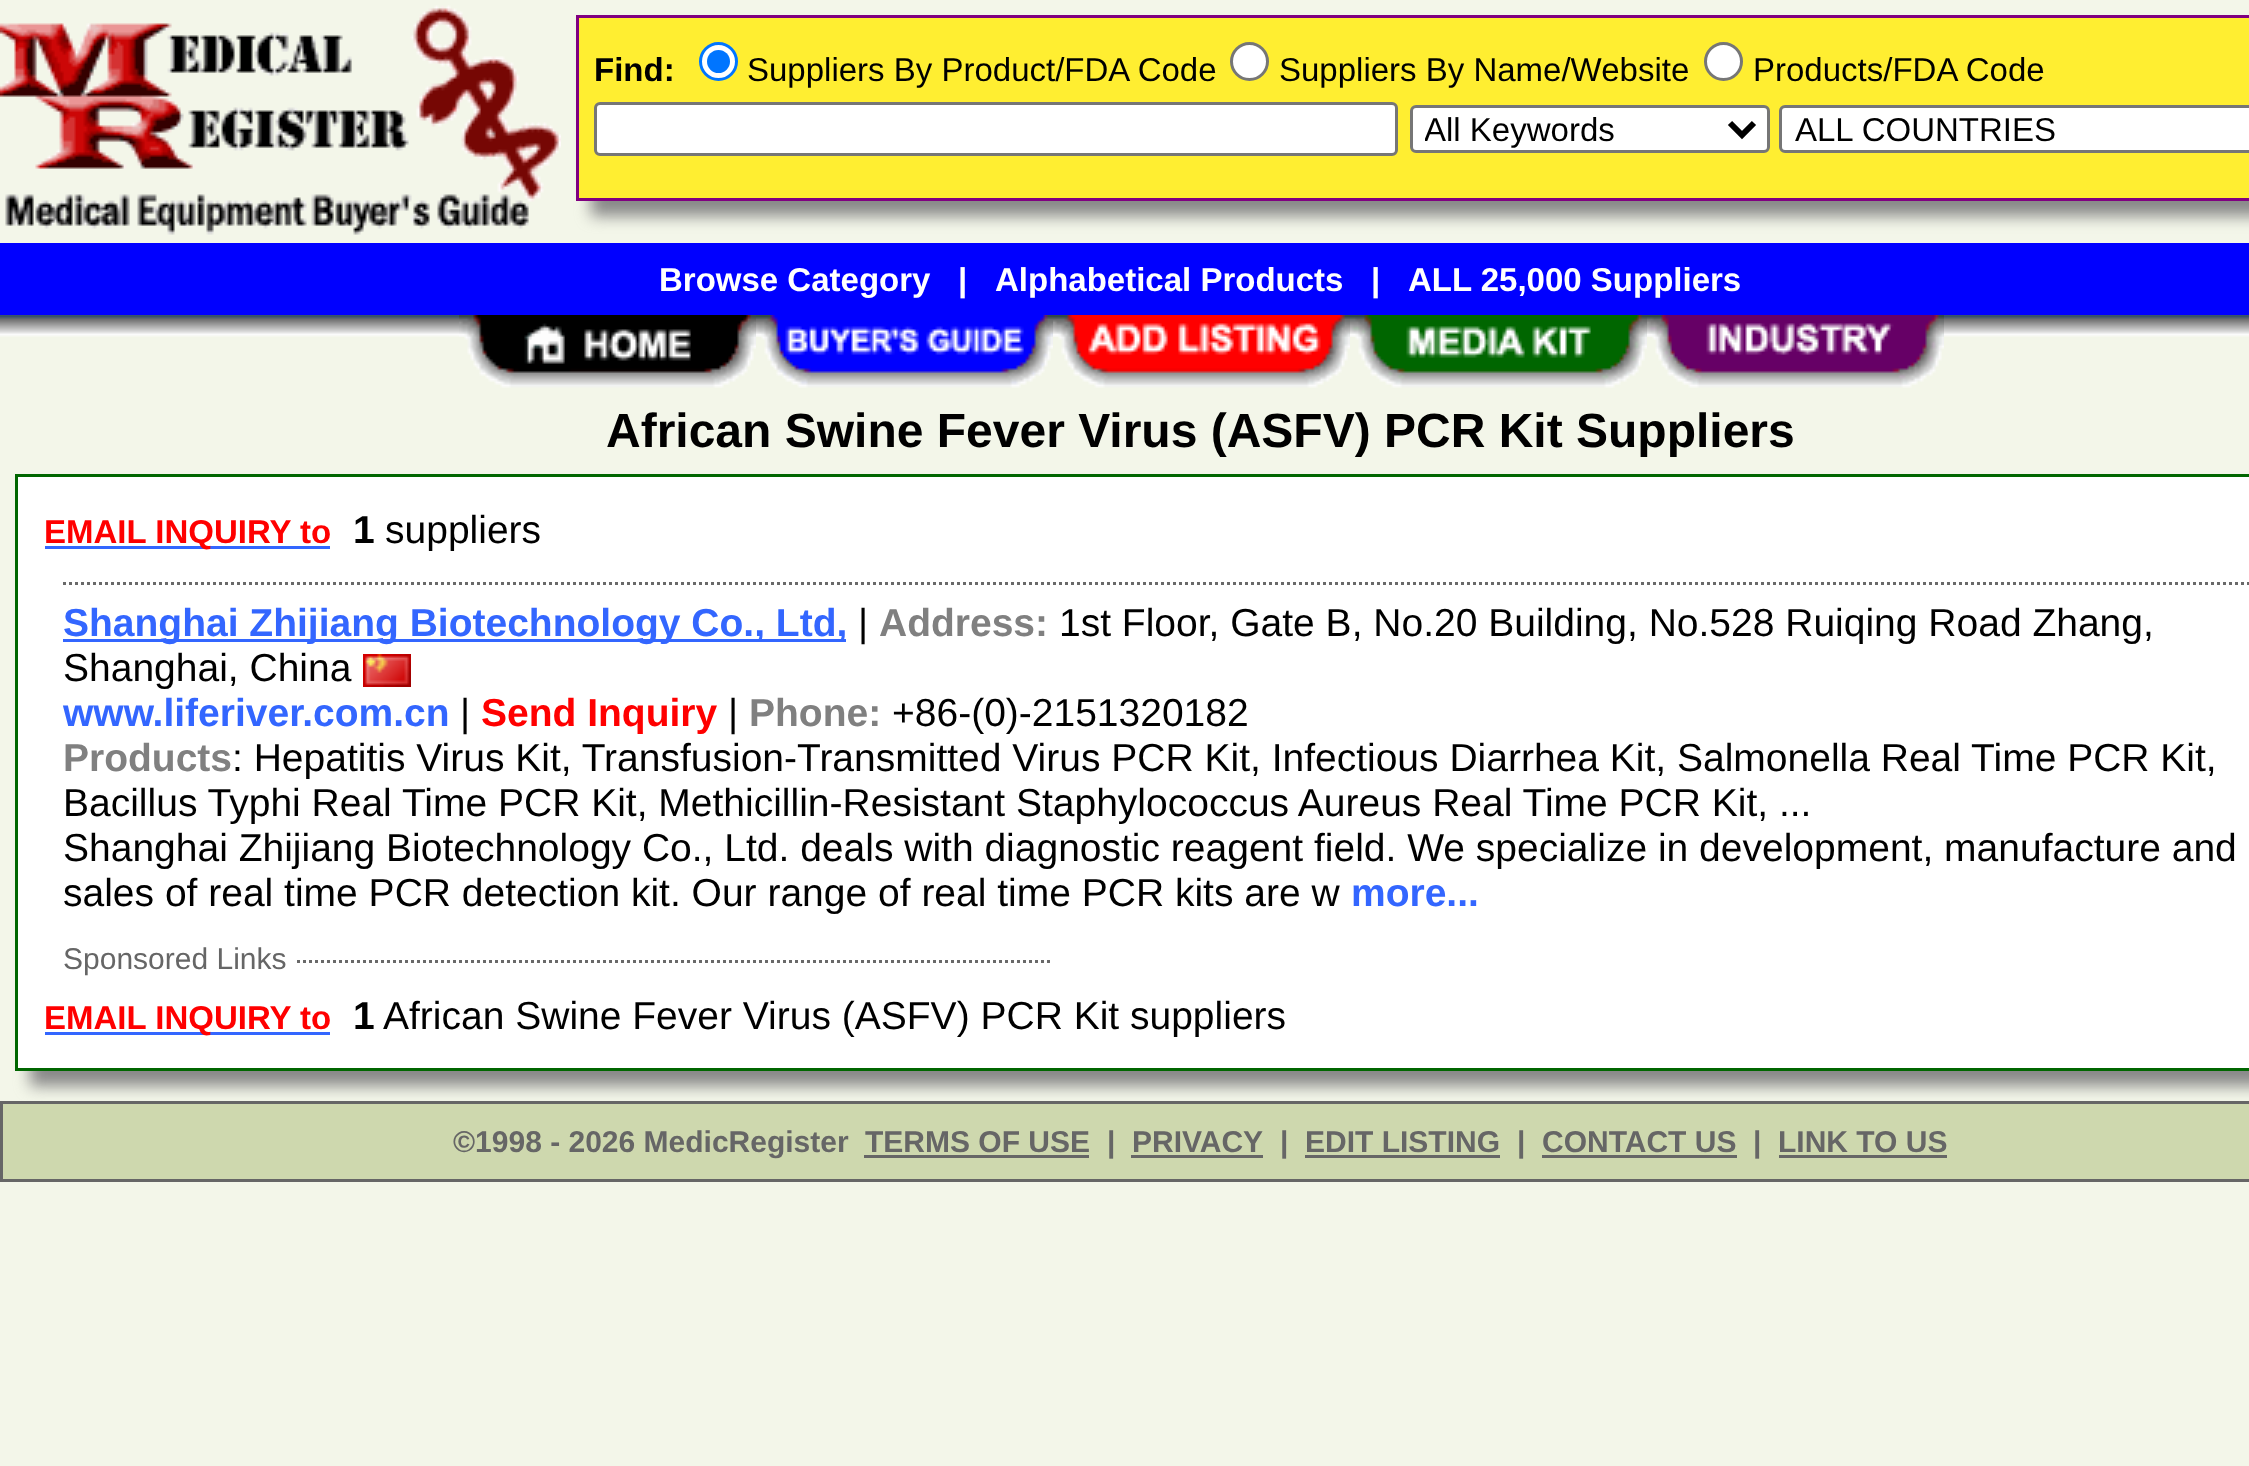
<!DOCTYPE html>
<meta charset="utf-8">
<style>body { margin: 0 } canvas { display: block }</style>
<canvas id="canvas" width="2249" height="1466"></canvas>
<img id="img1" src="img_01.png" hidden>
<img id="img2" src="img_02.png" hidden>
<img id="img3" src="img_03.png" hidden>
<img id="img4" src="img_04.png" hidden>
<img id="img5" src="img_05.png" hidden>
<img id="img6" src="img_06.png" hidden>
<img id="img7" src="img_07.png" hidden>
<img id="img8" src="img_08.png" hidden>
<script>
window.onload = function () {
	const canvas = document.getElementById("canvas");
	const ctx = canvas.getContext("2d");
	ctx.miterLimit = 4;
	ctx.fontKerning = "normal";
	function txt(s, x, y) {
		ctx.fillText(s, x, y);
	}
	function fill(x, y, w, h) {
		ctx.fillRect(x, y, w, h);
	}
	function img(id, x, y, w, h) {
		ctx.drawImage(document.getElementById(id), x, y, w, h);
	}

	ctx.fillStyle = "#F3F6E9";
	fill(0, 0, 2249, 1466);
	img("img1", 0, 5, 561, 230);
	ctx.fillStyle = "#888888";
	ctx.filter = "blur(7.5px)";
	ctx.beginPath();
	ctx.rect(591, 30, 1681, 186);
	ctx.fill();
	ctx.filter = "none";
	ctx.fillStyle = "#FFEE31";
	ctx.beginPath();
	ctx.rect(577.5, 16.5, 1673, 183);
	ctx.fill();
	ctx.strokeStyle = "#800080";
	ctx.lineWidth = 3;
	ctx.stroke();
	ctx.fillStyle = "#FFFFFF";
	ctx.beginPath();
	ctx.arc(718.5, 61.5, 18, 0, Math.PI * 2);
	ctx.fill();
	ctx.strokeStyle = "#0075FF";
	ctx.stroke();
	ctx.fillStyle = "#0075FF";
	ctx.beginPath();
	ctx.arc(718.5, 61.5, 11.5, 0, Math.PI * 2);
	ctx.fill();
	ctx.fillStyle = "#FFFFFF";
	ctx.beginPath();
	ctx.arc(1249.5, 61.5, 18, 0, Math.PI * 2);
	ctx.fill();
	ctx.strokeStyle = "#767676";
	ctx.stroke();
	ctx.beginPath();
	ctx.arc(1723.5, 61.5, 18, 0, Math.PI * 2);
	ctx.fill();
	ctx.stroke();
	ctx.beginPath();
	ctx.roundRect(595.5, 103.5, 801, 51, 4.5);
	ctx.fill();
	ctx.stroke();
	ctx.beginPath();
	ctx.roundRect(1411.5, 106.5, 357, 45, 4.5);
	ctx.fill();
	ctx.stroke();
	ctx.beginPath();
	ctx.moveTo(1730, 123);
	ctx.lineTo(1742, 135);
	ctx.lineTo(1754, 123);
	ctx.strokeStyle = "#000000";
	ctx.lineWidth = 6;
	ctx.stroke();
	ctx.beginPath();
	ctx.roundRect(1780.5, 106.5, 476, 45, 4.5);
	ctx.fill();
	ctx.strokeStyle = "#767676";
	ctx.lineWidth = 3;
	ctx.stroke();
	ctx.fillStyle = "#0000FF";
	fill(0, 243, 2249, 72);
	img("img2", 0, 315, 2249, 22);
	img("img3", 459, 315, 297, 73);
	img("img4", 756, 315, 297, 73);
	img("img5", 1053, 315, 297, 73);
	img("img6", 1350, 315, 297, 73);
	img("img7", 1647, 315, 297, 73);
	ctx.fillStyle = "#888888";
	ctx.filter = "blur(7.5px)";
	ctx.beginPath();
	ctx.rect(30, 489, 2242, 597);
	ctx.fill();
	ctx.filter = "none";
	ctx.fillStyle = "#FFFFFF";
	ctx.beginPath();
	ctx.rect(16.5, 475.5, 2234, 594);
	ctx.fill();
	ctx.strokeStyle = "#006600";
	ctx.stroke();
	ctx.fillStyle = "#3366FF";
	fill(45, 546, 285, 3);
	ctx.beginPath();
	ctx.moveTo(63, 583.5);
	ctx.lineTo(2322, 583.5);
	ctx.strokeStyle = "#696969";
	ctx.setLineDash([3, 3]);
	ctx.stroke();
	fill(63, 639, 783, 3);
	img("img8", 363, 654, 48, 33);
	ctx.beginPath();
	ctx.moveTo(63, 961.5);
	ctx.lineTo(1053, 961.5);
	ctx.stroke();
	ctx.fillStyle = "#FFFFFF";
	fill(63, 960, 231, 3);
	ctx.fillStyle = "#3366FF";
	fill(45, 1032, 285, 3);
	ctx.fillStyle = "#CED8AE";
	ctx.beginPath();
	ctx.rect(1.5, 1102.5, 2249, 78);
	ctx.fill();
	ctx.strokeStyle = "#666666";
	ctx.setLineDash([]);
	ctx.stroke();
	ctx.fillStyle = "#666666";
	fill(864, 1155, 225, 3);
	fill(1131, 1155, 132, 3);
	fill(1305, 1155, 195, 3);
	fill(1542, 1155, 195, 3);
	fill(1779, 1155, 168, 3);
	ctx.font = "bold 33px Liberation Sans";
	ctx.fillStyle = "#000000";
	txt("Find:", 594, 81);
	ctx.font = "33px Liberation Sans";
	txt("Suppliers By Product/FDA Code", 747, 81);
	txt("Suppliers By Name/Website", 1279, 81);
	txt("Products/FDA Code", 1753, 81);
	ctx.save();
	ctx.beginPath();
	ctx.rect(1425, 108, 294, 42);
	ctx.clip();
	txt("All Keywords", 1424, 141);
	ctx.restore();
	txt("ALL COUNTRIES", 1795, 141);
	ctx.font = "bold 33px Liberation Sans";
	ctx.fillStyle = "#FFFFFF";
	txt("Browse Category", 659, 291);
	txt("|", 958, 291);
	txt("Alphabetical Products", 995, 291);
	txt("|", 1371, 291);
	txt("ALL 25,000 Suppliers", 1408, 291);
	ctx.font = "bold 48px Liberation Sans";
	ctx.fillStyle = "#000000";
	txt("African Swine Fever Virus (ASFV) PCR Kit Suppliers", 606, 447);
	ctx.font = "bold 33px Liberation Sans";
	ctx.fillStyle = "#FF0000";
	txt("EMAIL INQUIRY to", 44, 543);
	ctx.font = "bold 39px Liberation Sans";
	ctx.fillStyle = "#000000";
	txt("1", 353, 543);
	ctx.font = "39px Liberation Sans";
	txt("suppliers", 385, 543);
	ctx.font = "bold 39px Liberation Sans";
	ctx.fillStyle = "#3366FF";
	txt("Shanghai Zhijiang Biotechnology Co., Ltd,", 63, 636);
	ctx.font = "39px Liberation Sans";
	ctx.fillStyle = "#000000";
	txt("|", 858, 636);
	ctx.font = "bold 39px Liberation Sans";
	ctx.fillStyle = "#808080";
	txt("Address:", 879, 636);
	ctx.font = "39px Liberation Sans";
	ctx.fillStyle = "#000000";
	txt("1st Floor, Gate B, No.20 Building, No.528 Ruiqing Road Zhang,", 1059, 636);
	txt("Shanghai, China", 63, 681);
	ctx.font = "bold 39px Liberation Sans";
	ctx.fillStyle = "#3366FF";
	txt("www.liferiver.com.cn", 63, 726);
	ctx.font = "39px Liberation Sans";
	ctx.fillStyle = "#000000";
	txt("|", 460, 726);
	ctx.font = "bold 39px Liberation Sans";
	ctx.fillStyle = "#FF0000";
	txt("Send Inquiry", 481, 726);
	ctx.font = "39px Liberation Sans";
	ctx.fillStyle = "#000000";
	txt("|", 728, 726);
	ctx.font = "bold 39px Liberation Sans";
	ctx.fillStyle = "#808080";
	txt("Phone:", 749, 726);
	ctx.font = "39px Liberation Sans";
	ctx.fillStyle = "#000000";
	txt("+86-(0)-2151320182", 892, 726);
	ctx.font = "bold 39px Liberation Sans";
	ctx.fillStyle = "#808080";
	txt("Products", 63, 771);
	ctx.font = "39px Liberation Sans";
	ctx.fillStyle = "#000000";
	txt(": Hepatitis Virus Kit, Transfusion-Transmitted Virus PCR Kit, Infectious Diarrhea Kit, Salmonella Real Time PCR Kit,", 232, 771);
	txt("Bacillus Typhi Real Time PCR Kit, Methicillin-Resistant Staphylococcus Aureus Real Time PCR Kit, ...", 63, 816);
	txt("Shanghai Zhijiang Biotechnology Co., Ltd. deals with diagnostic reagent field. We specialize in development, manufacture and", 63, 861);
	txt("sales of real time PCR detection kit. Our range of real time PCR kits are w", 63, 906);
	ctx.font = "bold 39px Liberation Sans";
	ctx.fillStyle = "#3366FF";
	txt("more...", 1351, 906);
	ctx.font = "30px Liberation Sans";
	ctx.fillStyle = "#666666";
	txt("Sponsored Links", 63, 969);
	ctx.font = "bold 33px Liberation Sans";
	ctx.fillStyle = "#FF0000";
	txt("EMAIL INQUIRY to", 44, 1029);
	ctx.font = "bold 39px Liberation Sans";
	ctx.fillStyle = "#000000";
	txt("1", 353, 1029);
	ctx.font = "39px Liberation Sans";
	txt("African Swine Fever Virus (ASFV) PCR Kit suppliers", 383, 1029);
	ctx.font = "bold 30px Liberation Sans";
	ctx.fillStyle = "#666666";
	txt("©1998 - 2026 MedicRegister", 453, 1152);
	txt("TERMS OF USE", 865, 1152);
	txt("|", 1107, 1152);
	txt("PRIVACY", 1132, 1152);
	txt("|", 1280, 1152);
	txt("EDIT LISTING", 1305, 1152);
	txt("|", 1517, 1152);
	txt("CONTACT US", 1542, 1152);
	txt("|", 1753, 1152);
	txt("LINK TO US", 1778, 1152);
};
</script>
